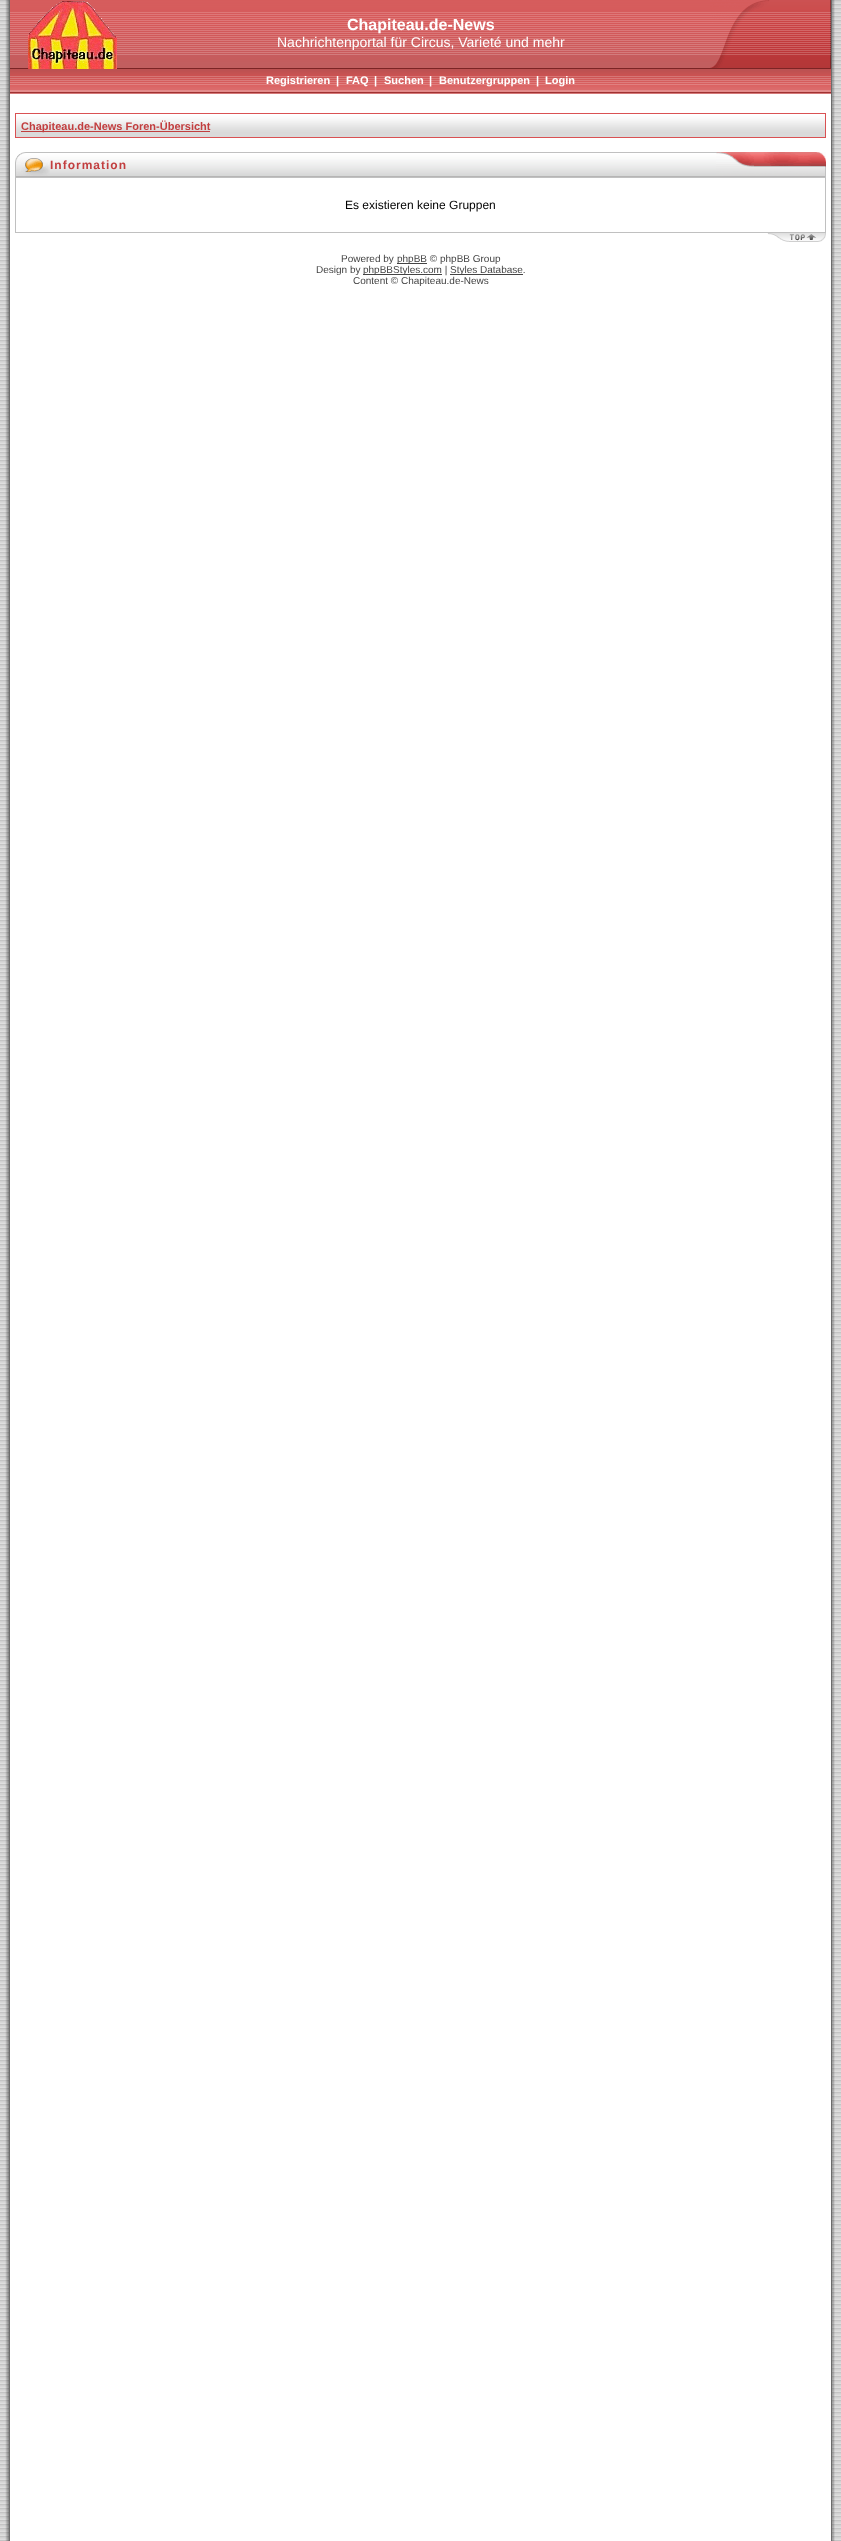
<!DOCTYPE html>
<meta charset="utf-8">
<style>body { margin: 0 } canvas { display: block }</style>
<canvas id="canvas" width="841" height="2541"></canvas>
<img id="img1" src="img_01.png" hidden>
<img id="img2" src="img_02.png" hidden>
<img id="img3" src="img_03.png" hidden>
<img id="img4" src="img_04.png" hidden>
<img id="img5" src="img_05.png" hidden>
<img id="img6" src="img_06.png" hidden>
<img id="img7" src="img_07.png" hidden>
<img id="img8" src="img_08.png" hidden>
<img id="img9" src="img_09.png" hidden>
<img id="img10" src="img_10.png" hidden>
<img id="img11" src="img_11.png" hidden>
<script>
window.onload = function () {
	const canvas = document.getElementById("canvas");
	const ctx = canvas.getContext("2d");
	ctx.miterLimit = 4;
	ctx.fontKerning = "normal";
	function txt(s, x, y) {
		ctx.fillText(s, x, y);
	}
	function fill(x, y, w, h) {
		ctx.fillRect(x, y, w, h);
	}
	function img(id, x, y, w, h) {
		ctx.drawImage(document.getElementById(id), x, y, w, h);
	}

	ctx.fillStyle = "#FFFFFF";
	fill(0, 0, 841, 2541);
	img("img1", 0, 0, 10, 2541);
	img("img2", 10, 0, 821, 69);
	img("img3", 28, 1, 89, 68);
	img("img4", 710, 0, 121, 68);
	img("img5", 10, 69, 821, 25);
	img("img6", 16, 114, 809, 23);
	ctx.strokeStyle = "#D95153";
	ctx.strokeRect(15.5, 113.5, 810, 24);
	ctx.fillStyle = "#C23E3F";
	fill(21, 131, 189, 1);
	img("img7", 50, 152, 666, 25);
	img("img8", 15, 152, 35, 25);
	img("img9", 716, 152, 110, 25);
	ctx.fillStyle = "#C0C0C0";
	fill(15, 177, 811, 56);
	ctx.fillStyle = "#FFFFFF";
	fill(16, 178, 809, 54);
	img("img10", 767, 233, 59, 9);
	ctx.fillStyle = "#444444";
	fill(397, 263, 30, 1);
	fill(363, 274, 79, 1);
	fill(450, 274, 73, 1);
	img("img11", 831, 0, 10, 2541);
	ctx.font = "bold 16px Liberation Sans";
	ctx.fillStyle = "#FFFFFF";
	txt("Chapiteau.de-News", 347, 30);
	ctx.font = "14px Liberation Sans";
	txt("Nachrichtenportal für Circus, Varieté und mehr", 277, 47);
	ctx.font = "bold 11px Liberation Sans";
	txt("Registrieren", 266, 84);
	txt("|", 336, 84);
	txt("FAQ", 346, 84);
	txt("|", 374, 84);
	txt("Suchen", 384, 84);
	txt("|", 429, 84);
	txt("Benutzergruppen", 439, 84);
	txt("|", 536, 84);
	txt("Login", 545, 84);
	ctx.fillStyle = "#C23E3F";
	txt("Chapiteau.de-News Foren-Übersicht", 21, 130);
	ctx.letterSpacing = "1px";
	ctx.font = "bold 12px Liberation Sans";
	txt("Information", 50, 169);
	ctx.letterSpacing = "0px";
	ctx.font = "12px Liberation Sans";
	ctx.fillStyle = "#000000";
	txt("Es existieren keine Gruppen", 345, 209);
	ctx.font = "10px Liberation Sans";
	ctx.fillStyle = "#444444";
	txt("Powered by", 341, 262);
	txt("phpBB © phpBB Group", 397, 262);
	txt("Design by", 316, 273);
	txt("phpBBStyles.com |", 363, 273);
	txt("Styles Database.", 450, 273);
	txt("Content © Chapiteau.de-News", 353, 284);
};
</script>
